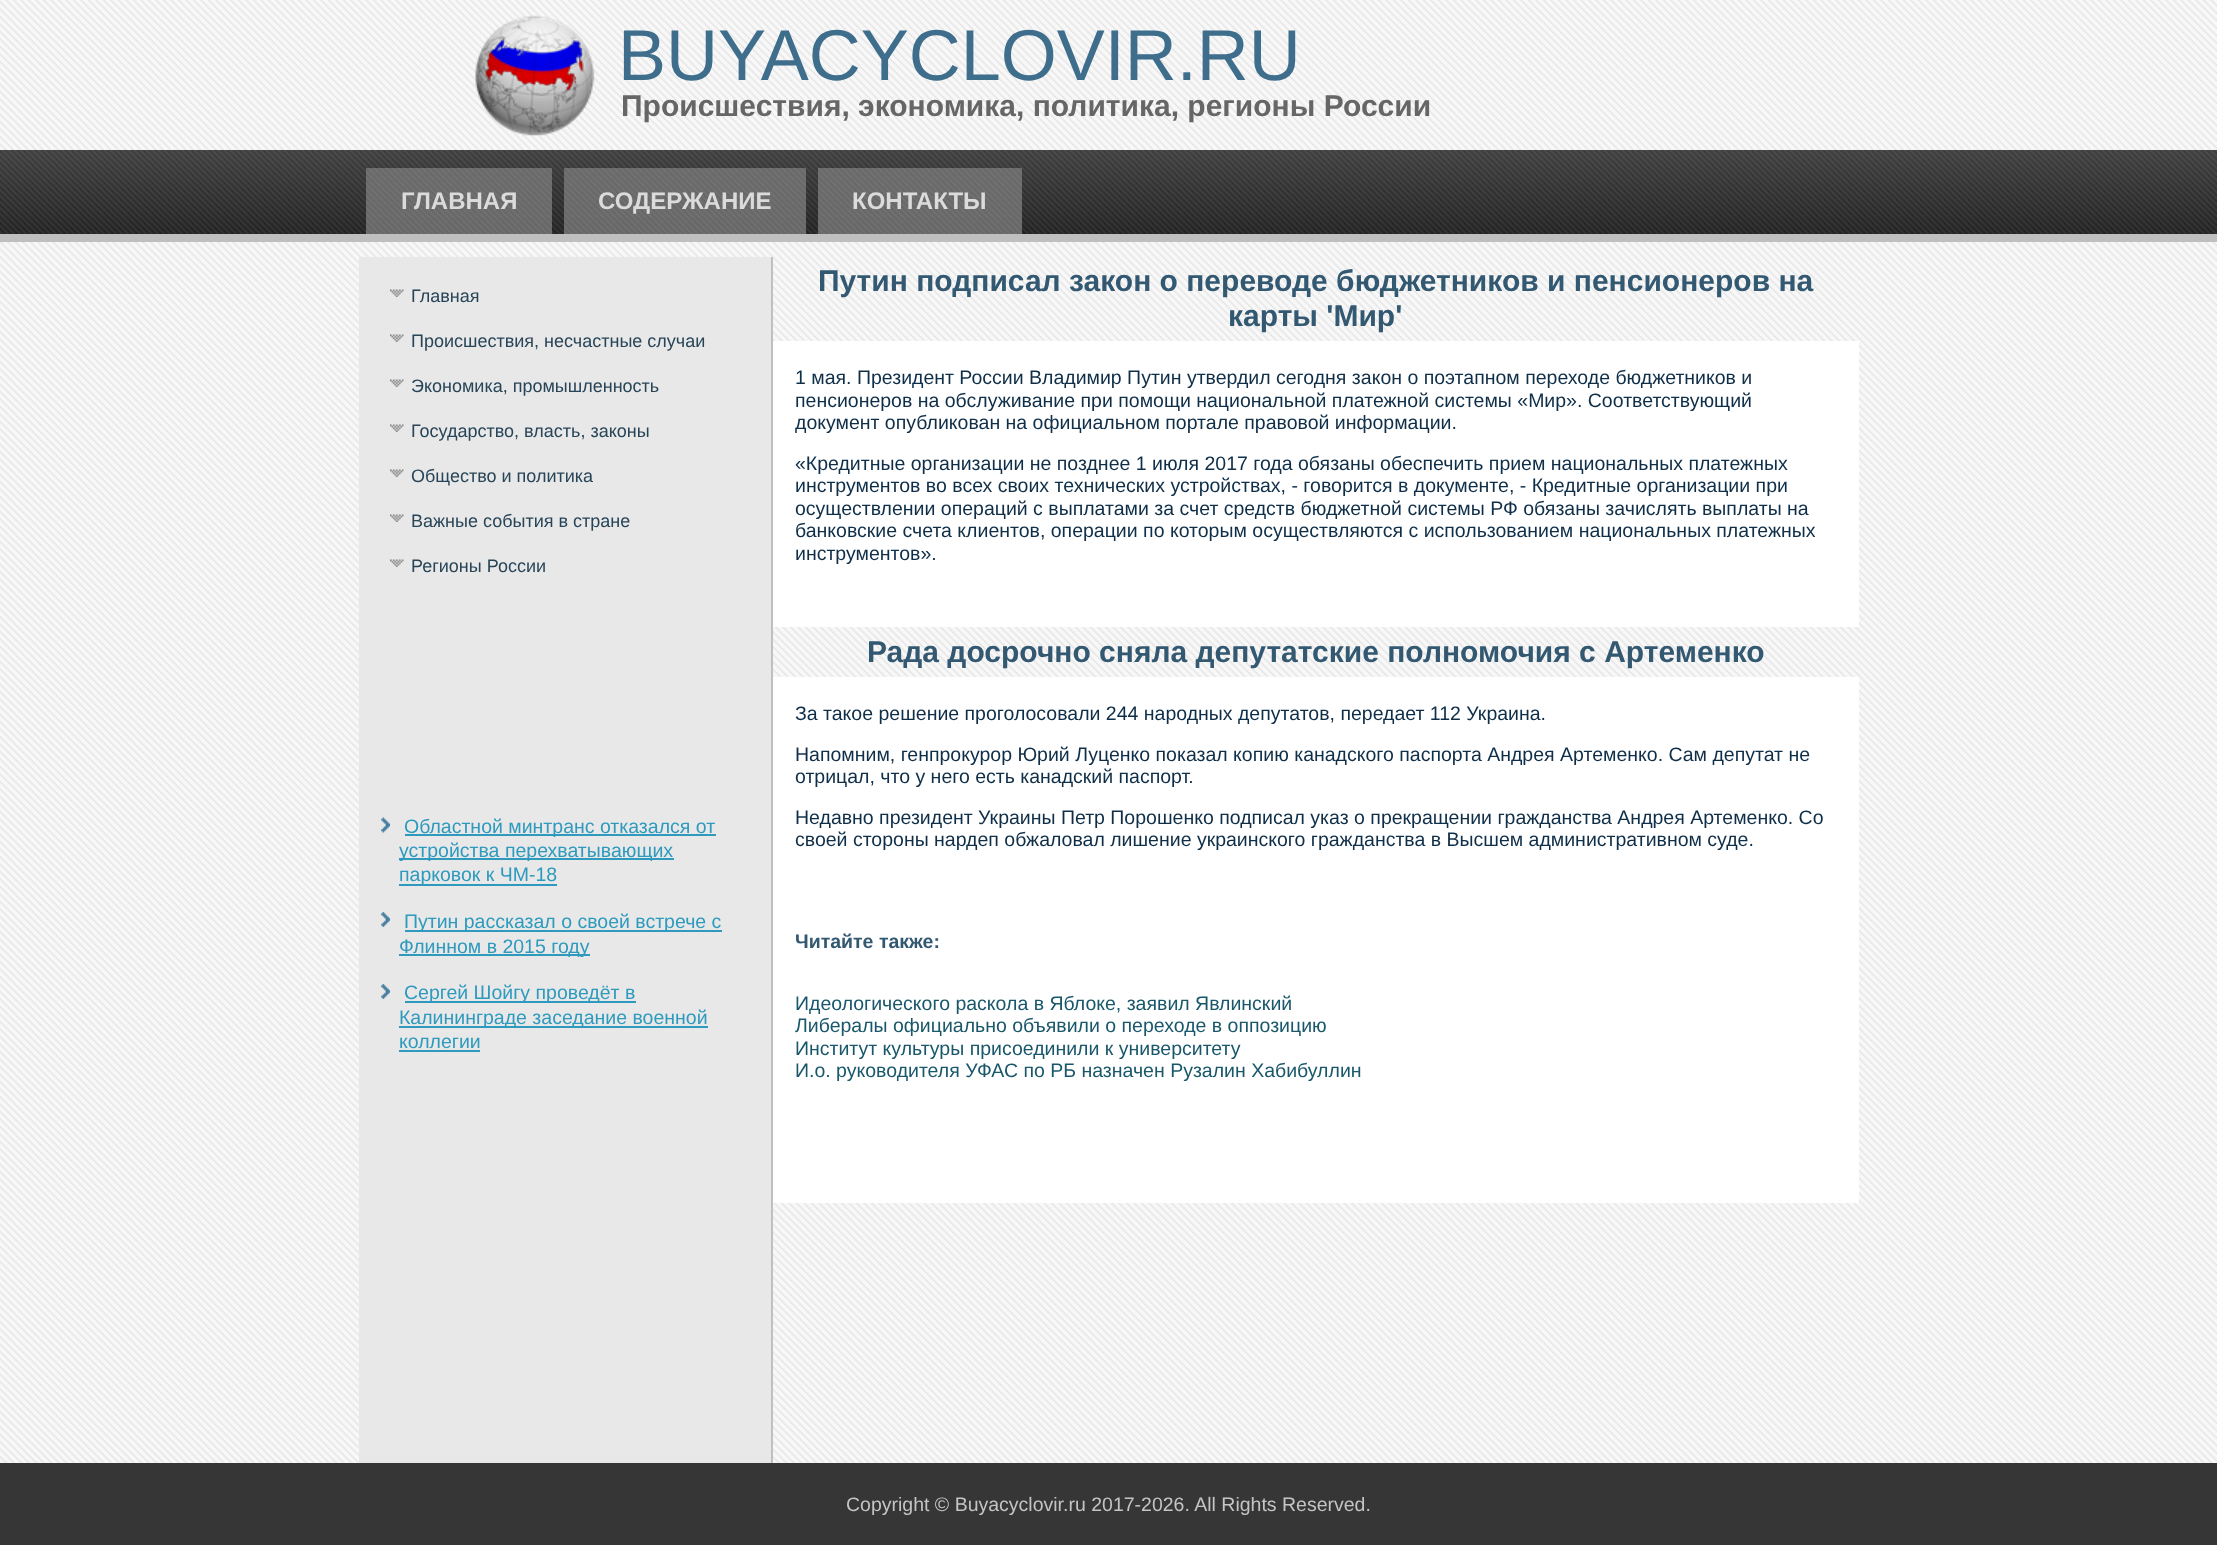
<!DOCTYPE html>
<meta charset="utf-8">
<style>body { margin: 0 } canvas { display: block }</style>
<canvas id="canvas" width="2217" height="1545"></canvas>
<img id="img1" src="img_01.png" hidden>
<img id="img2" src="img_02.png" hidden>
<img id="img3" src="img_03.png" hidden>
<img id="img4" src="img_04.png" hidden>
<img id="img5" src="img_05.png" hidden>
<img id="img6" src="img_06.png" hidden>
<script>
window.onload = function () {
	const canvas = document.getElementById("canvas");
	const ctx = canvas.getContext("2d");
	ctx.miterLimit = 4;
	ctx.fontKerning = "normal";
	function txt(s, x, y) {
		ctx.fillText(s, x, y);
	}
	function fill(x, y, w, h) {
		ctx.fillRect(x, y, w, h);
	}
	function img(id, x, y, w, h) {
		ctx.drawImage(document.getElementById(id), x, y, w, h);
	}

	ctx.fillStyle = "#FAFAFA";
	fill(0, 0, 2217, 1545);
	img("img1", 0, 0, 2217, 1463);
	img("img2", 475, 15, 120, 121);
	img("img3", 0, 150, 2217, 84);
	ctx.fillStyle = "#BFBFBF";
	fill(0, 234, 2217, 8);
	ctx.fillStyle = "#E8E8E8";
	fill(359, 257, 412, 1206);
	ctx.fillStyle = "#BFBFBF";
	fill(771, 257, 2, 1206);
	img("img4", 390, 289, 14, 8);
	img("img4", 390, 334, 14, 8);
	img("img4", 390, 379, 14, 8);
	img("img4", 390, 424, 14, 8);
	img("img4", 390, 469, 14, 8);
	img("img4", 390, 514, 14, 8);
	img("img4", 390, 559, 14, 8);
	img("img5", 381, 817, 9, 16);
	ctx.fillStyle = "#2D9ABE";
	fill(405, 834, 311, 2);
	fill(399, 858, 275, 2);
	fill(399, 884, 158, 2);
	img("img6", 381, 912, 9, 15);
	fill(405, 930, 317, 2);
	fill(399, 954, 191, 2);
	img("img6", 381, 984, 9, 15);
	fill(405, 1001, 231, 2);
	fill(399, 1026, 309, 2);
	fill(399, 1050, 81, 2);
	ctx.fillStyle = "#FFFFFF";
	fill(773, 341, 1086, 286);
	fill(773, 677, 1086, 526);
	ctx.fillStyle = "#363636";
	fill(0, 1463, 2217, 82);
	ctx.font = "72px Liberation Sans";
	ctx.fillStyle = "#3F6E8D";
	txt("BUYACYCLOVIR.RU", 618, 80);
	ctx.font = "bold 30px Liberation Sans";
	ctx.fillStyle = "#666666";
	txt("Происшествия, экономика, политика, регионы России", 621, 116);
	ctx.font = "bold 24px Liberation Sans";
	ctx.fillStyle = "#DBDBDB";
	txt("ГЛАВНАЯ", 401, 209);
	txt("СОДЕРЖАНИЕ", 598, 209);
	txt("КОНТАКТЫ", 852, 209);
	ctx.font = "18px Liberation Sans";
	ctx.fillStyle = "#284558";
	txt("Главная", 411, 302);
	txt("Происшествия, несчастные случаи", 411, 347);
	txt("Экономика, промышленность", 411, 392);
	txt("Государство, власть, законы", 411, 437);
	txt("Общество и политика", 411, 482);
	txt("Важные события в стране", 411, 527);
	txt("Регионы России", 411, 572);
	ctx.font = "19.5px Liberation Sans";
	ctx.fillStyle = "#2D9ABE";
	txt("Областной минтранс отказался от", 404, 833);
	txt("устройства перехватывающих", 399, 857);
	txt("парковок к ЧМ-18", 399, 881);
	txt("Путин рассказал о своей встрече с", 404, 928);
	txt("Флинном в 2015 году", 399, 953);
	txt("Сергей Шойгу проведёт в", 404, 999);
	txt("Калининграде заседание военной", 399, 1024);
	txt("коллегии", 399, 1048);
	ctx.font = "bold 30px Liberation Sans";
	ctx.fillStyle = "#335871";
	txt("Путин подписал закон о переводе бюджетников и пенсионеров на", 818, 291);
	txt("карты 'Мир'", 1228, 326);
	ctx.font = "19.5px Liberation Sans";
	ctx.fillStyle = "#0F2E48";
	txt("1 мая. Президент России Владимир Путин утвердил сегодня закон о поэтапном переходе бюджетников и", 795, 384);
	txt("пенсионеров на обслуживание при помощи национальной платежной системы «Мир». Соответствующий", 795, 407);
	txt("документ опубликован на официальном портале правовой информации.", 795, 429);
	txt("«Кредитные организации не позднее 1 июля 2017 года обязаны обеспечить прием национальных платежных", 795, 470);
	txt("инструментов во всех своих технических устройствах, - говорится в документе, - Кредитные организации при", 795, 492);
	txt("осуществлении операций с выплатами за счет средств бюджетной системы РФ обязаны зачислять выплаты на", 795, 515);
	txt("банковские счета клиентов, операции по которым осуществляются с использованием национальных платежных", 795, 537);
	txt("инструментов».", 795, 560);
	ctx.font = "bold 30px Liberation Sans";
	ctx.fillStyle = "#335871";
	txt("Рада досрочно сняла депутатские полномочия с Артеменко", 867, 662);
	ctx.font = "19.5px Liberation Sans";
	ctx.fillStyle = "#0F2E48";
	txt("За такое решение проголосовали 244 народных депутатов, передает 112 Украина.", 795, 720);
	txt("Напомним, генпрокурор Юрий Луценко показал копию канадского паспорта Андрея Артеменко. Сам депутат не", 795, 761);
	txt("отрицал, что у него есть канадский паспорт.", 795, 783);
	txt("Недавно президент Украины Петр Порошенко подписал указ о прекращении гражданства Андрея Артеменко. Со", 795, 824);
	txt("своей стороны нардеп обжаловал лишение украинского гражданства в Высшем административном суде.", 795, 846);
	ctx.font = "bold 19.5px Liberation Sans";
	ctx.fillStyle = "#335871";
	txt("Читайте также:", 795, 948);
	ctx.font = "19.5px Liberation Sans";
	ctx.fillStyle = "#19576B";
	txt("Идеологического раскола в Яблоке, заявил Явлинский", 795, 1010);
	txt("Либералы официально объявили о переходе в оппозицию", 795, 1032);
	txt("Институт культуры присоединили к университету", 795, 1055);
	txt("И.о. руководителя УФАС по РБ назначен Рузалин Хабибуллин", 795, 1077);
	ctx.fillStyle = "#C4C4C4";
	txt("Copyright © Buyacyclovir.ru 2017-2026. All Rights Reserved.", 846, 1511);
};
</script>
